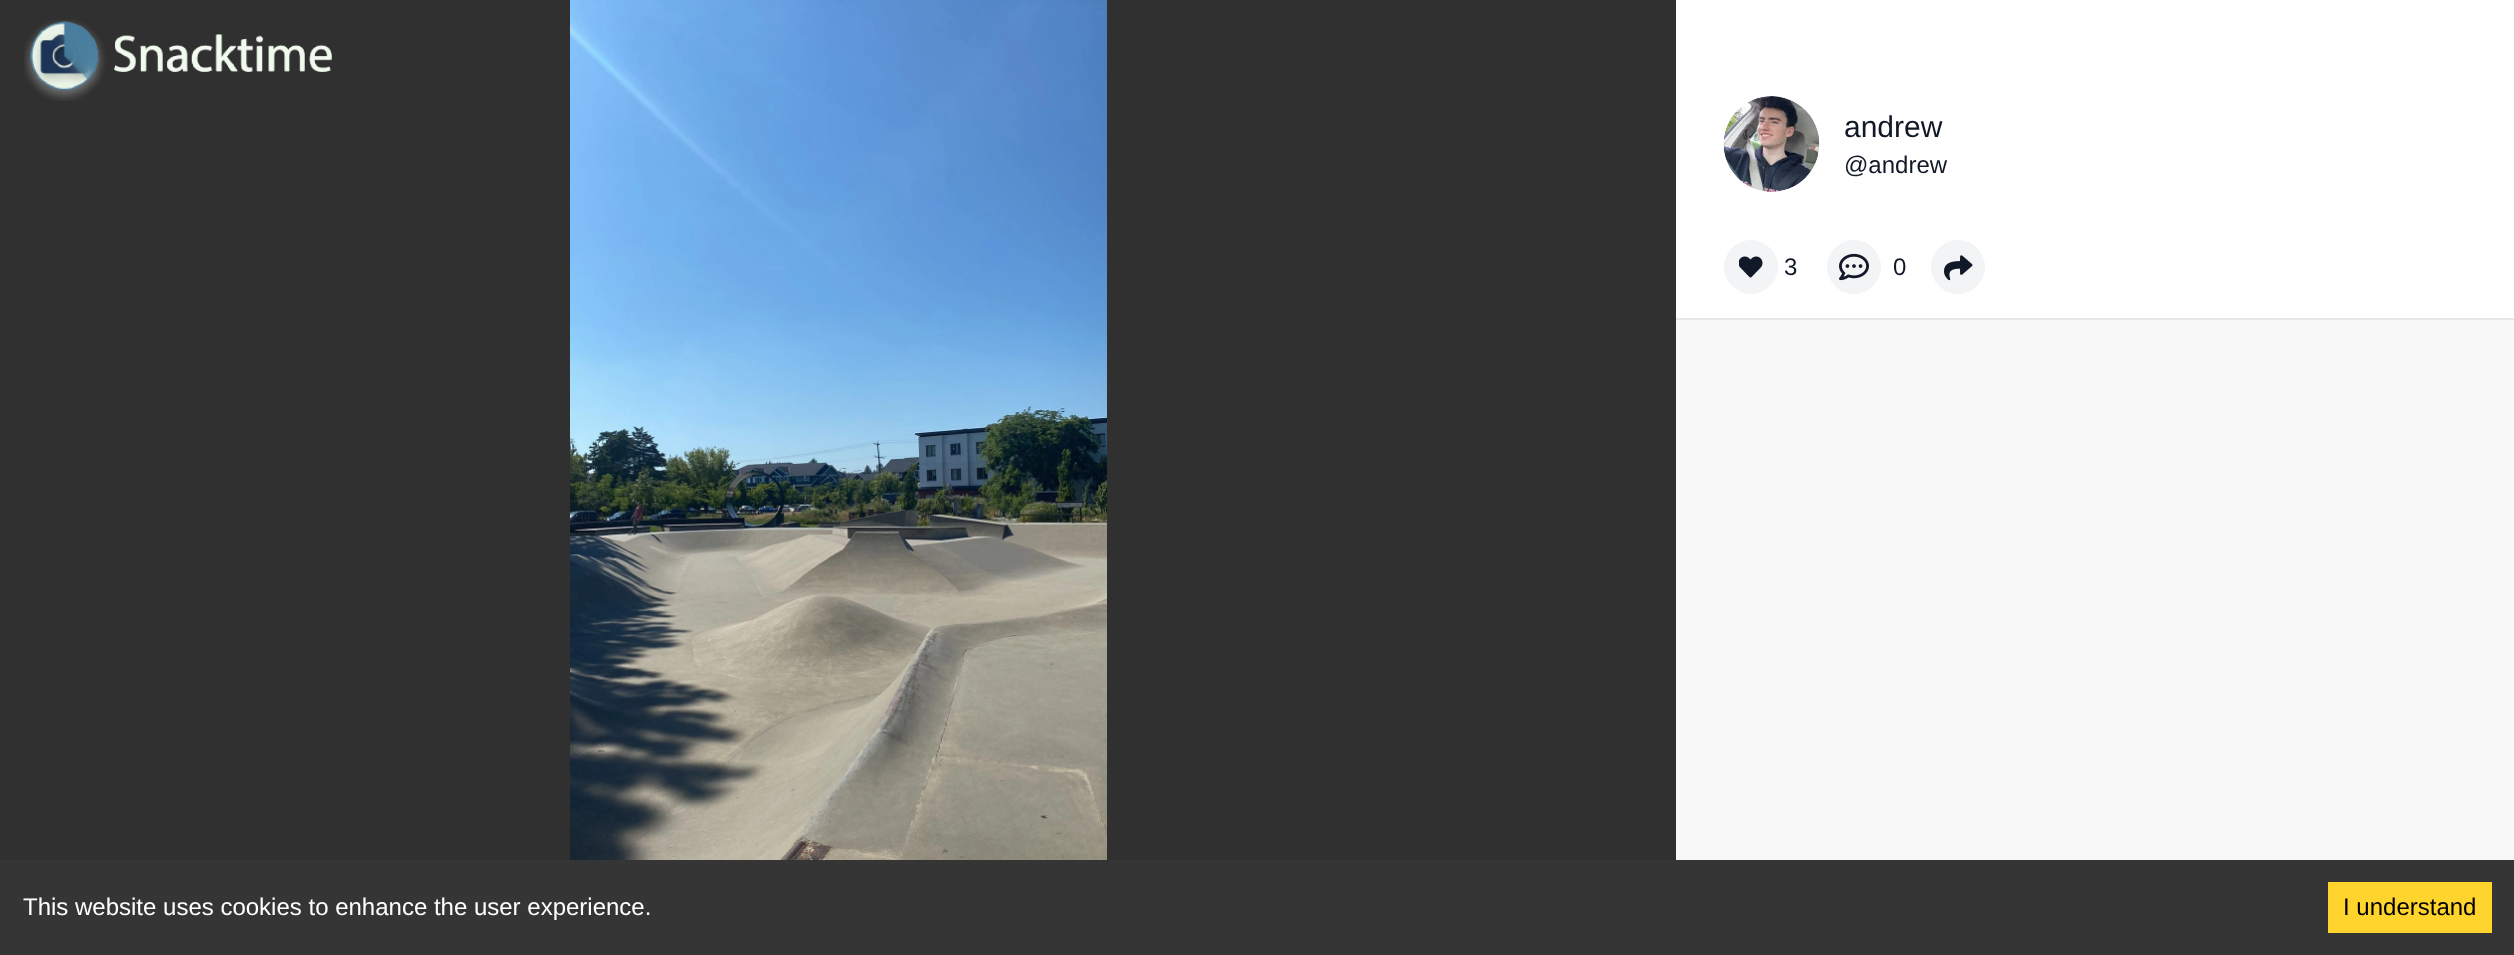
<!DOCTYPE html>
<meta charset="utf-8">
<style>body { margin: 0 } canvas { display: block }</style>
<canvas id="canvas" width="2514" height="955"></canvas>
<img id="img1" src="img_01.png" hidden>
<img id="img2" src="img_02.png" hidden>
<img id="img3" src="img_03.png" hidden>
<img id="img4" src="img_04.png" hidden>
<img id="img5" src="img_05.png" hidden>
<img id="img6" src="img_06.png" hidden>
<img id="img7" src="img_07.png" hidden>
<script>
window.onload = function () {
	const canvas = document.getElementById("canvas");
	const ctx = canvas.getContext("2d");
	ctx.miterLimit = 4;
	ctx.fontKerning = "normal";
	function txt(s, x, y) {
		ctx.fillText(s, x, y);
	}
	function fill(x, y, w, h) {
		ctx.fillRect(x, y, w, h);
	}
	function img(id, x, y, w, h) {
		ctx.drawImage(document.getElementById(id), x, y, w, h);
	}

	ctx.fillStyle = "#FFFFFF";
	fill(0, 0, 2514, 955);
	ctx.fillStyle = "#303030";
	fill(0, 0, 1676, 860);
	img("img1", 24, 20, 308, 81);
	img("img2", 24, 20, 308, 81);
	img("img3", 570, 0, 537, 860);
	img("img4", 1723, 96, 97, 96);
	ctx.fillStyle = "#F3F4F6";
	ctx.beginPath();
	ctx.arc(1751, 267, 27, 0, Math.PI * 2);
	ctx.fill();
	img("img5", 1739, 256, 24, 22);
	ctx.beginPath();
	ctx.arc(1854, 267, 27, 0, Math.PI * 2);
	ctx.fill();
	img("img6", 1839, 253, 30, 28);
	ctx.beginPath();
	ctx.arc(1958, 267, 27, 0, Math.PI * 2);
	ctx.fill();
	img("img7", 1944, 255, 29, 26);
	ctx.fillStyle = "#F8F8F8";
	fill(1676, 320, 838, 540);
	ctx.fillStyle = "#E5E7EB";
	fill(1676, 318, 838, 2);
	ctx.fillStyle = "#353535";
	fill(0, 860, 2514, 95);
	ctx.fillStyle = "#FFD42D";
	fill(2328, 882, 164, 51);
	ctx.font = "30px Liberation Sans";
	ctx.fillStyle = "#111827";
	txt("andrew", 1844, 137);
	ctx.font = "24px Liberation Sans";
	txt("@andrew", 1844, 173);
	txt("3", 1784, 275);
	txt("0", 1893, 275);
	ctx.fillStyle = "#FFFFFF";
	txt("This website uses cookies to enhance the user experience.", 23, 915);
	ctx.fillStyle = "#000000";
	txt("I understand", 2343, 915);
};
</script>
